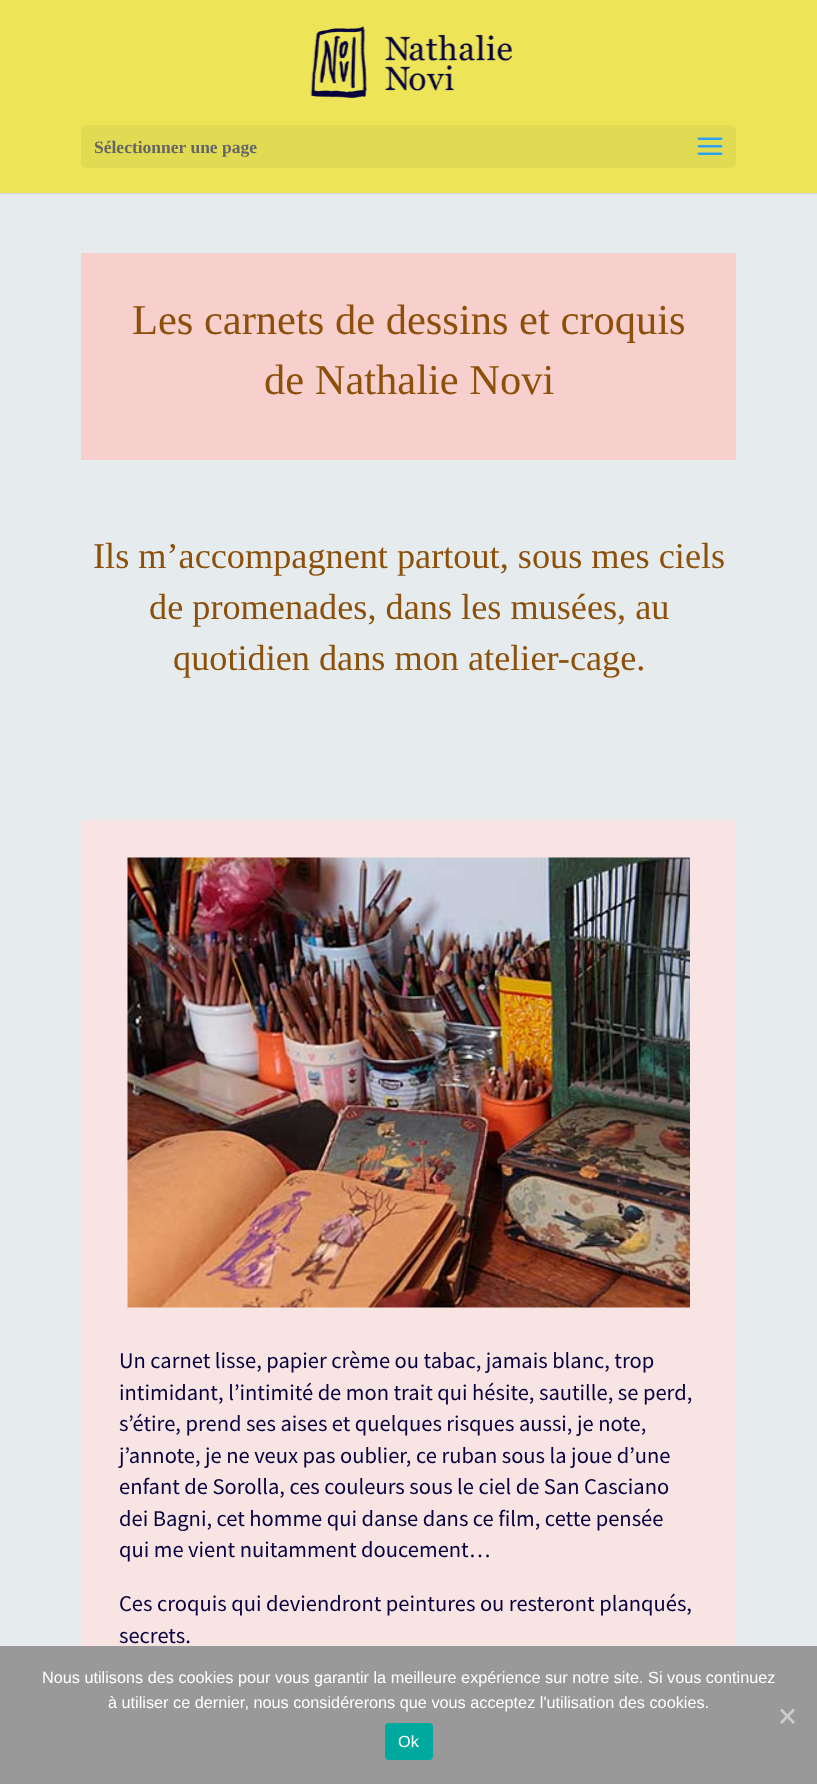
<!DOCTYPE html>
<meta charset="utf-8">
<style>body { margin: 0 } canvas { display: block }</style>
<canvas id="canvas" width="817" height="1784"></canvas>
<img id="img1" src="img_01.png" hidden>
<img id="img2" src="img_02.png" hidden>
<img id="img3" src="img_03.png" hidden>
<script>
window.onload = function () {
	const canvas = document.getElementById("canvas");
	const ctx = canvas.getContext("2d");
	ctx.miterLimit = 4;
	ctx.fontKerning = "normal";
	function txt(s, x, y) {
		ctx.fillText(s, x, y);
	}
	function fill(x, y, w, h) {
		ctx.fillRect(x, y, w, h);
	}
	function round(x, y, w, h, r) {
		ctx.beginPath();
		ctx.roundRect(x, y, w, h, r);
		ctx.fill();
	}
	function img(id, x, y, w, h) {
		ctx.drawImage(document.getElementById(id), x, y, w, h);
	}

	ctx.fillStyle = "#E6ECED";
	fill(0, 0, 817, 1784);
	ctx.fillStyle = "#CFD4D5";
	ctx.beginPath();
	ctx.moveTo(0, 192);
	ctx.lineTo(0, 194);
	ctx.lineTo(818, 194);
	ctx.lineTo(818, 1);
	ctx.lineTo(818, 192);
	ctx.closePath();
	ctx.fill();
	ctx.fillStyle = "#EDE557";
	fill(0, 0, 817, 193);
	img("img1", 310, 26, 203, 72);
	ctx.fillStyle = "#E1DA53";
	round(81, 125, 655, 43, 6);
	img("img2", 697, 137, 26, 18);
	ctx.fillStyle = "#F7CFCD";
	fill(81, 253, 655, 207);
	ctx.fillStyle = "#F7E4E3";
	fill(81, 820, 655, 826);
	img("img3", 127, 857, 563, 451);
	ctx.fillStyle = "#999999";
	fill(0, 1646, 817, 138);
	ctx.fillStyle = "#CCCCCC";
	ctx.beginPath();
	ctx.moveTo(793, 1708.5);
	ctx.lineTo(795, 1710.5);
	ctx.lineTo(782, 1724);
	ctx.lineTo(780, 1722);
	ctx.closePath();
	ctx.fill();
	ctx.beginPath();
	ctx.moveTo(780, 1710.5);
	ctx.lineTo(782, 1708.5);
	ctx.lineTo(795, 1722);
	ctx.lineTo(793, 1724);
	ctx.closePath();
	ctx.fill();
	ctx.fillStyle = "#00A99D";
	round(385, 1723, 48, 37, 4);
	ctx.font = "bold 17.5px Liberation Serif";
	ctx.fillStyle = "#666666";
	txt("Sélectionner une page", 94, 153);
	ctx.font = "42.5px Liberation Serif";
	ctx.fillStyle = "#8C500B";
	txt("Les carnets de dessins et croquis", 132, 334);
	txt("de Nathalie Novi", 264, 394);
	ctx.font = "36.25px Liberation Serif";
	txt("Ils m’accompagnent partout, sous mes ciels", 93, 568);
	txt("de promenades, dans les musées, au", 149, 619);
	txt("quotidien dans mon atelier-cage.", 173, 670);
	ctx.font = "22.5px Source Sans Pro";
	ctx.fillStyle = "#06003F";
	txt("Un carnet lisse, papier crème ou tabac, jamais blanc, trop", 119, 1368);
	txt("intimidant, l’intimité de mon trait qui hésite, sautille, se perd,", 119, 1400);
	txt("s’étire, prend ses aises et quelques risques aussi, je note,", 119, 1431);
	txt("j’annote, je ne veux pas oublier, ce ruban sous la joue d’une", 119, 1463);
	txt("enfant de Sorolla, ces couleurs sous le ciel de San Casciano", 119, 1494);
	txt("dei Bagni, cet homme qui danse dans ce film, cette pensée", 119, 1526);
	txt("qui me vient nuitamment doucement…", 119, 1557);
	txt("Ces croquis qui deviendront peintures ou resteront planqués,", 119, 1611);
	txt("secrets.", 119, 1643);
	ctx.font = "16.25px Liberation Sans";
	ctx.fillStyle = "#FFFFFF";
	txt("Nous utilisons des cookies pour vous garantir la meilleure expérience sur notre site. Si vous continuez", 42, 1683);
	txt("à utiliser ce dernier, nous considérerons que vous acceptez l'utilisation des cookies.", 108, 1708);
	txt("Ok", 398, 1747);
};
</script>
